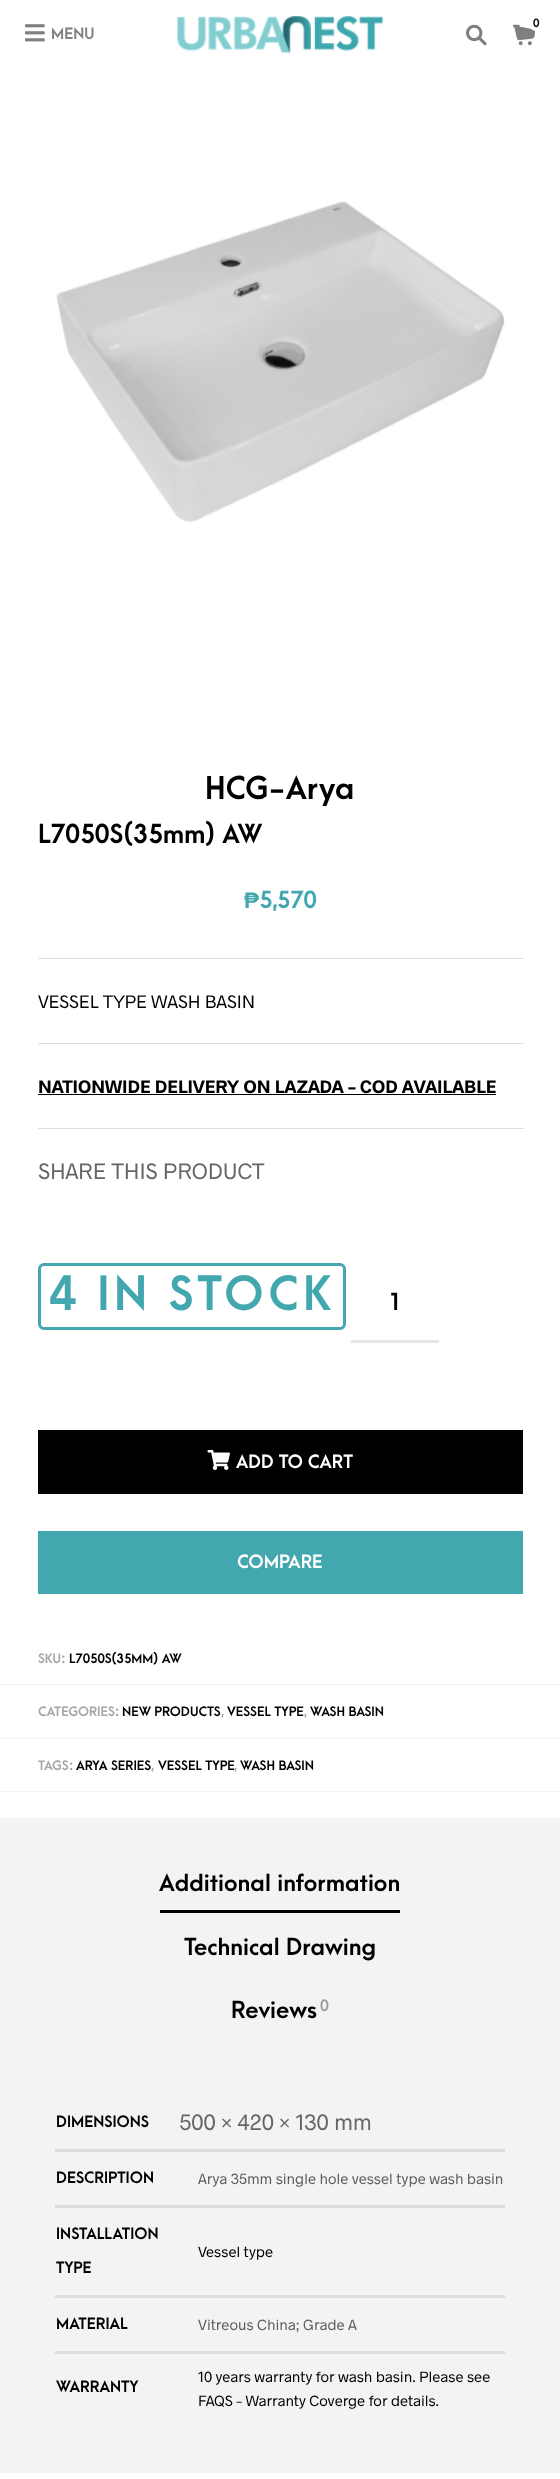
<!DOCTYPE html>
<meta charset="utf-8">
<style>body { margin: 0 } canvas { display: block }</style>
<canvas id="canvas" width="560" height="2479"></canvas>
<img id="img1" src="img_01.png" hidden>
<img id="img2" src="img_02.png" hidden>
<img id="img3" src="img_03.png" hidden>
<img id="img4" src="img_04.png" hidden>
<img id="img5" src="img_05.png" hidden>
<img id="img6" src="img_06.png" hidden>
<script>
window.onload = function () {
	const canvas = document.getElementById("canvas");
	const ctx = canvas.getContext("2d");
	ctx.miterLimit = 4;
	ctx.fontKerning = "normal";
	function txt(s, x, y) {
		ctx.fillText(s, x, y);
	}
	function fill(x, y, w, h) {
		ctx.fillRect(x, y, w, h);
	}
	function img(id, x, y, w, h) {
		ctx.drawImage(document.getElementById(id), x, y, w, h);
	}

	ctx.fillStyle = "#FFFFFF";
	fill(0, 0, 560, 2479);
	img("img1", 177, 16, 207, 38);
	img("img2", 513, 24, 22, 22);
	ctx.beginPath();
	ctx.arc(536.5, 22.5, 8.5, 0, Math.PI * 2);
	ctx.fill();
	img("img3", 466, 24, 21, 22);
	img("img4", 25, 24, 20, 18);
	img("img5", 56, 201, 449, 321);
	ctx.fillStyle = "#E2DEDE";
	fill(38, 958, 486, 1);
	fill(38, 1043, 486, 1);
	fill(38, 1128, 486, 1);
	ctx.fillStyle = "#000000";
	fill(38, 1094, 458, 1);
	ctx.beginPath();
	ctx.roundRect(39.5, 1264.5, 305, 64, 4.5);
	ctx.strokeStyle = "#42A7AF";
	ctx.lineWidth = 3;
	ctx.stroke();
	ctx.fillStyle = "#E6E6E6";
	fill(351, 1340, 88, 3);
	ctx.fillStyle = "#000000";
	fill(38, 1430, 485, 64);
	img("img6", 207, 1450, 23, 20);
	ctx.fillStyle = "#42A7AF";
	fill(38, 1531, 485, 63);
	ctx.fillStyle = "#F3F3F3";
	fill(0, 1684, 560, 1);
	fill(0, 1738, 560, 1);
	fill(0, 1791, 560, 1);
	fill(0, 1818, 560, 655);
	ctx.fillStyle = "#000000";
	fill(160, 1910, 240, 3);
	ctx.fillStyle = "#DDDDDD";
	fill(55, 2149, 450, 3);
	fill(55, 2205, 450, 3);
	fill(55, 2295, 450, 3);
	fill(55, 2351, 450, 3);
	ctx.font = "bold 11px 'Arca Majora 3'";
	ctx.fillStyle = "#000000";
	txt("0", 533, 27);
	ctx.font = "bold 15px 'Arca Majora 3'";
	ctx.fillStyle = "#808080";
	txt("MENU", 51, 39);
	ctx.font = "bold 30px 'Arca Majora 3'";
	ctx.fillStyle = "#000000";
	txt("HCG-Arya", 205, 799);
	ctx.font = "bold 25px 'Arca Majora 3'";
	txt("L7050S(35mm) AW", 38, 843);
	ctx.font = "bold 22.5px Liberation Sans";
	ctx.fillStyle = "#42A7AF";
	txt("₱", 244, 908);
	ctx.font = "bold 22.5px 'Arca Majora 3'";
	txt("5,570", 259, 908);
	ctx.font = "18.25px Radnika";
	ctx.fillStyle = "#000000";
	txt("VESSEL TYPE WASH BASIN", 38, 1008);
	ctx.font = "bold 18.25px Radnika";
	txt("NATIONWIDE DELIVERY ON LAZADA – COD AVAILABLE", 38, 1093);
	ctx.font = "22.5px Radnika";
	ctx.fillStyle = "#666666";
	txt("SHARE THIS PRODUCT", 38, 1179);
	ctx.letterSpacing = "4.5px";
	ctx.font = "bold 45px 'Arca Majora 3'";
	ctx.fillStyle = "#42A7AF";
	txt("4 IN STOCK", 49, 1310);
	ctx.letterSpacing = "0px";
	ctx.font = "bold 22.5px 'Arca Majora 3'";
	ctx.fillStyle = "#000000";
	txt("1", 389, 1310);
	ctx.font = "bold 17.5px 'Arca Majora 3'";
	ctx.fillStyle = "#FFFFFF";
	txt("ADD TO CART", 236, 1468);
	txt("COMPARE", 237, 1568);
	ctx.font = "bold 12.5px 'Arca Majora 3'";
	ctx.fillStyle = "#A6A6A6";
	txt("SKU:", 38, 1663);
	ctx.fillStyle = "#000000";
	txt("L7050S(35MM) AW", 69, 1663);
	ctx.fillStyle = "#A6A6A6";
	txt("CATEGORIES:", 38, 1716);
	ctx.fillStyle = "#000000";
	txt("NEW PRODUCTS", 122, 1716);
	ctx.fillStyle = "#A6A6A6";
	txt(",", 221, 1716);
	ctx.fillStyle = "#000000";
	txt("VESSEL TYPE", 227, 1716);
	ctx.fillStyle = "#A6A6A6";
	txt(",", 304, 1716);
	ctx.fillStyle = "#000000";
	txt("WASH BASIN", 310, 1716);
	ctx.fillStyle = "#A6A6A6";
	txt("TAGS:", 38, 1770);
	ctx.fillStyle = "#000000";
	txt("ARYA SERIES", 76, 1770);
	ctx.fillStyle = "#A6A6A6";
	txt(",", 151, 1770);
	ctx.fillStyle = "#000000";
	txt("VESSEL TYPE", 158, 1770);
	ctx.fillStyle = "#A6A6A6";
	txt(",", 234, 1770);
	ctx.fillStyle = "#000000";
	txt("WASH BASIN", 240, 1770);
	ctx.font = "bold 22.5px 'Arca Majora 3'";
	txt("Additional information", 159, 1891);
	txt("Technical Drawing", 184, 1955);
	txt("Reviews", 231, 2018);
	ctx.font = "bold 15px 'Arca Majora 3'";
	ctx.fillStyle = "#9E9E9E";
	txt("0", 320, 2011);
	ctx.fillStyle = "#000000";
	txt("DIMENSIONS", 56, 2127);
	ctx.font = "22.5px Radnika";
	ctx.fillStyle = "#666666";
	txt("500 × 420 × 130 mm", 179, 2130);
	ctx.font = "bold 15px 'Arca Majora 3'";
	ctx.fillStyle = "#000000";
	txt("DESCRIPTION", 56, 2183);
	ctx.font = "15px Radnika";
	ctx.fillStyle = "#5D5D5D";
	txt("Arya 35mm single hole vessel type wash basin", 198, 2184);
	ctx.font = "bold 15px 'Arca Majora 3'";
	ctx.fillStyle = "#000000";
	txt("INSTALLATION", 56, 2239);
	txt("TYPE", 56, 2273);
	ctx.font = "15px Radnika";
	txt("Vessel type", 198, 2257);
	ctx.font = "bold 15px 'Arca Majora 3'";
	txt("MATERIAL", 56, 2329);
	ctx.font = "15px Radnika";
	ctx.fillStyle = "#5D5D5D";
	txt("Vitreous China; Grade A", 198, 2330);
	ctx.font = "bold 15px 'Arca Majora 3'";
	ctx.fillStyle = "#000000";
	txt("WARRANTY", 56, 2392);
	ctx.font = "15px Radnika";
	txt("10 years warranty for wash basin. Please see", 198, 2382);
	txt("FAQS – Warranty Coverge for details.", 198, 2406);
};
</script>
